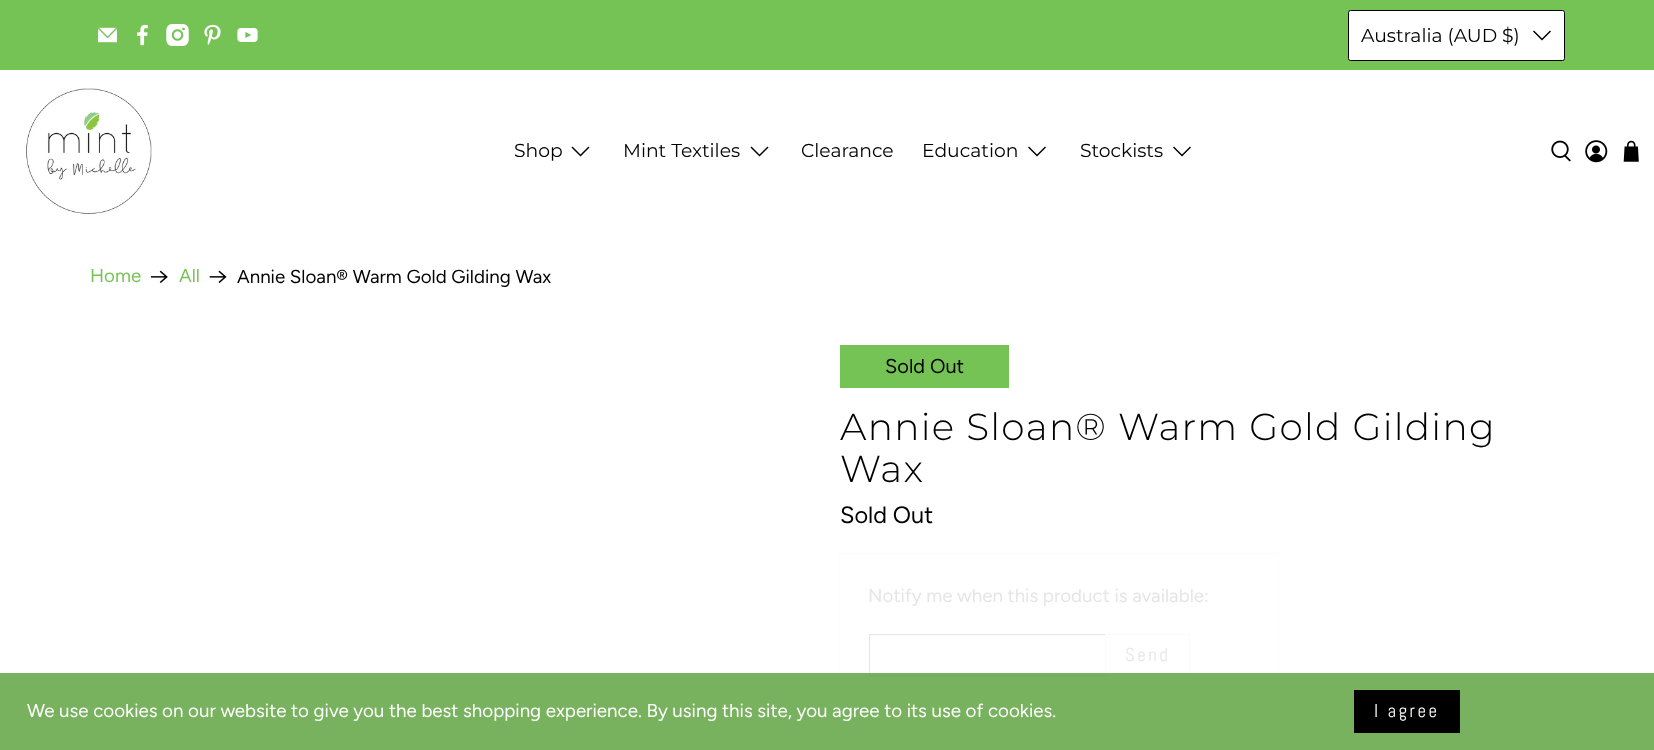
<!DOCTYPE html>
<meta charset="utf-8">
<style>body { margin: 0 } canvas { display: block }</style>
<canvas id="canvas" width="1654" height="750"></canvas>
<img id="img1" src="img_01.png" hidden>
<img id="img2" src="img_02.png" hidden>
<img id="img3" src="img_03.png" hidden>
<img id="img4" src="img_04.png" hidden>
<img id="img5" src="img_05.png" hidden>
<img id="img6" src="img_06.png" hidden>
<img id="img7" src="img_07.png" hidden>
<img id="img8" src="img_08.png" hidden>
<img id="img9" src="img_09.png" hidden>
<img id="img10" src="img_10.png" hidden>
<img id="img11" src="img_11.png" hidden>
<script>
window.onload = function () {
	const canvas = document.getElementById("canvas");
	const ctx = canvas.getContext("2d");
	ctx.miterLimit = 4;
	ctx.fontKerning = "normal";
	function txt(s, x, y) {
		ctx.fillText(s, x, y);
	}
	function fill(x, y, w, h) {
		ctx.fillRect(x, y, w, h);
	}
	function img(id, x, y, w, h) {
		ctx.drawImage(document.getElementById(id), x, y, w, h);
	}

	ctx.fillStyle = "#FFFFFF";
	fill(0, 0, 1654, 750);
	ctx.fillStyle = "#76C355";
	fill(0, 0, 1654, 70);
	img("img1", 98, 27, 19, 16);
	img("img2", 137, 24, 11, 22);
	img("img3", 166, 24, 23, 22);
	img("img4", 204, 24, 17, 21);
	img("img5", 237, 28, 21, 14);
	ctx.fillStyle = "#FFFFFF";
	ctx.beginPath();
	ctx.roundRect(1348.5, 10.5, 216, 50, 2);
	ctx.fill();
	ctx.strokeStyle = "#000000";
	ctx.stroke();
	ctx.fillStyle = "#000000";
	ctx.beginPath();
	ctx.moveTo(1542, 40.5);
	ctx.lineTo(1533, 31.5);
	ctx.lineTo(1534, 30.5);
	ctx.lineTo(1542, 38.5);
	ctx.lineTo(1550, 30.5);
	ctx.lineTo(1551, 31.5);
	ctx.closePath();
	ctx.fill();
	img("img6", 26, 88, 126, 126);
	ctx.beginPath();
	ctx.moveTo(580.5, 156.5);
	ctx.lineTo(571.5, 147.5);
	ctx.lineTo(572.5, 146.5);
	ctx.lineTo(580.5, 154.5);
	ctx.lineTo(588.5, 146.5);
	ctx.lineTo(589.5, 147.5);
	ctx.closePath();
	ctx.fill();
	ctx.beginPath();
	ctx.moveTo(759.5, 156.5);
	ctx.lineTo(750.5, 147.5);
	ctx.lineTo(751.5, 146.5);
	ctx.lineTo(759.5, 154.5);
	ctx.lineTo(767.5, 146.5);
	ctx.lineTo(768.5, 147.5);
	ctx.closePath();
	ctx.fill();
	ctx.beginPath();
	ctx.moveTo(1037, 156.5);
	ctx.lineTo(1028, 147.5);
	ctx.lineTo(1029, 146.5);
	ctx.lineTo(1037, 154.5);
	ctx.lineTo(1045, 146.5);
	ctx.lineTo(1046, 147.5);
	ctx.closePath();
	ctx.fill();
	ctx.beginPath();
	ctx.moveTo(1182, 156.5);
	ctx.lineTo(1173, 147.5);
	ctx.lineTo(1174, 146.5);
	ctx.lineTo(1182, 154.5);
	ctx.lineTo(1190, 146.5);
	ctx.lineTo(1191, 147.5);
	ctx.closePath();
	ctx.fill();
	img("img7", 1551, 140, 20, 22);
	img("img8", 1585, 140, 23, 23);
	img("img9", 1623, 140, 16, 22);
	img("img10", 150, 270, 18, 13);
	img("img11", 209, 270, 18, 13);
	ctx.fillStyle = "#76C355";
	fill(840, 345, 169, 43);
	ctx.strokeStyle = "#FCFCFC";
	ctx.strokeRect(839.5, 553.5, 439, 151);
	ctx.strokeStyle = "#E5E5E5";
	ctx.strokeRect(869.5, 634.5, 236, 41);
	ctx.strokeStyle = "#FBFBFB";
	ctx.strokeRect(1105.5, 634.5, 84, 41);
	ctx.fillStyle = "rgba(86, 159, 55, 0.8)";
	fill(0, 673, 1654, 77);
	ctx.fillStyle = "#000000";
	fill(1354, 690, 106, 43);
	ctx.font = "18.75px Montserrat";
	txt("Australia (AUD $)", 1361, 42);
	txt("Shop", 514, 157);
	txt("Mint Textiles", 623, 157);
	txt("Clearance", 801, 157);
	txt("Education", 922, 157);
	txt("Stockists", 1080, 157);
	ctx.font = "18.75px Figtree";
	ctx.fillStyle = "#76C355";
	txt("Home", 90, 282);
	txt("All", 179, 282);
	ctx.fillStyle = "#000000";
	txt("Annie Sloan® Warm Gold Gilding Wax", 237, 283);
	ctx.font = "20px Figtree";
	txt("Sold Out", 885, 373);
	ctx.letterSpacing = "1.25px";
	ctx.font = "300 37.5px Montserrat";
	txt("Annie Sloan® Warm Gold Gilding", 840, 440);
	txt("Wax", 840, 482);
	ctx.letterSpacing = "0px";
	ctx.font = "23.5px Figtree";
	txt("Sold Out", 840, 523);
	ctx.font = "18.75px Figtree";
	ctx.fillStyle = "#E5E5E5";
	txt("Notify me when this product is available:", 868, 602);
	ctx.letterSpacing = "2.5px";
	ctx.font = "18.75px Abel";
	txt("Send", 1125, 661);
	ctx.letterSpacing = "0px";
	ctx.font = "18.75px Figtree";
	ctx.fillStyle = "#FFFFFF";
	txt("We use cookies on our website to give you the best shopping experience. By using this site, you agree to its use of cookies.", 27, 717);
	ctx.letterSpacing = "2.5px";
	ctx.font = "18.75px Abel";
	txt("I agree", 1374, 717);
};
</script>
